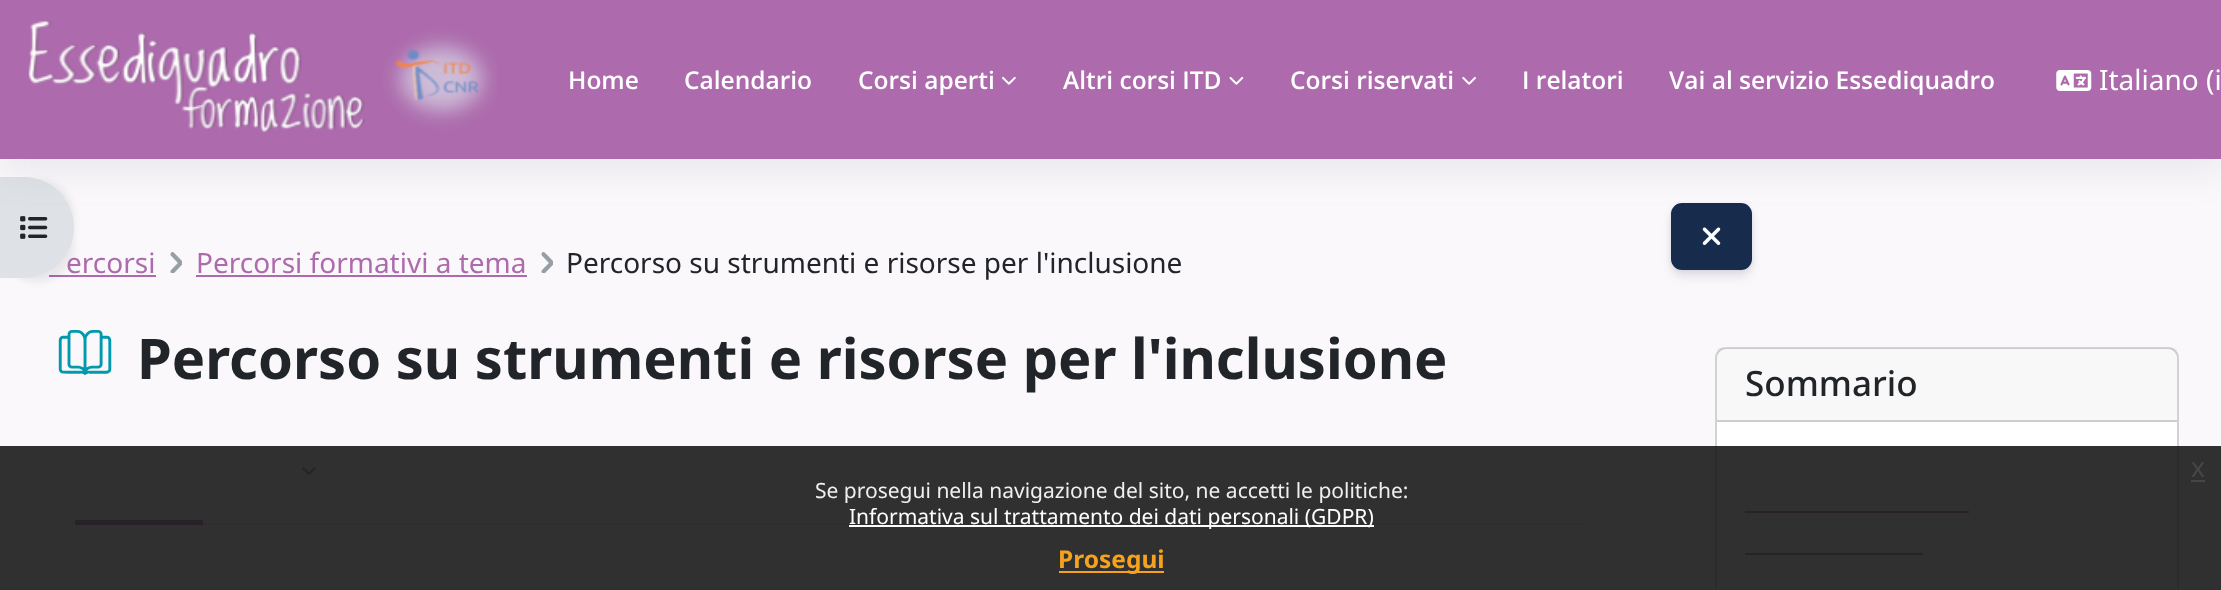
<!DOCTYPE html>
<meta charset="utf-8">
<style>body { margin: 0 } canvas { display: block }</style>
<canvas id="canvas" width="2221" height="590"></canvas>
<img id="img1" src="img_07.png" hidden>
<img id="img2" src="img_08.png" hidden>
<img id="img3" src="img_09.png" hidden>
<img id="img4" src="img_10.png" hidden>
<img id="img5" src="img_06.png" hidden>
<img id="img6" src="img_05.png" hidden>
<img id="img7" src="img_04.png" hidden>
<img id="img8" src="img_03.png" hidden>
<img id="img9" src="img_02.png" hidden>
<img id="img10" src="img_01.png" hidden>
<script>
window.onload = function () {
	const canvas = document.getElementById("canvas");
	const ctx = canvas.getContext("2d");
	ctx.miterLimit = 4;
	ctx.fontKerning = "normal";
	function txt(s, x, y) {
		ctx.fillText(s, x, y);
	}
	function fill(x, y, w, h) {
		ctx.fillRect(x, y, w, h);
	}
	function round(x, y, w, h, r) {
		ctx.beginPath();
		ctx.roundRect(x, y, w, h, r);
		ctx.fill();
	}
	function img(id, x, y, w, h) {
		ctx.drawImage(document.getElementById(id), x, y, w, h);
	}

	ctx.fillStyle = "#FBF8FB";
	fill(0, 0, 2221, 590);
	ctx.fillStyle = "#AD6BAD";
	fill(49, 275, 107, 2);
	ctx.fillStyle = "rgba(0, 0, 0, 0.07)";
	ctx.filter = "blur(3.5px)";
	ctx.beginPath();
	ctx.roundRect(0, 180, 74, 102, 51);
	ctx.fill();
	ctx.filter = "none";
	img("img1", 170, 252, 12, 21);
	ctx.fillStyle = "#AD6BAD";
	fill(196, 275, 331, 2);
	img("img1", 541, 252, 12, 21);
	img("img2", 58, 330, 54, 45);
	ctx.fillStyle = "#DEE2E6";
	fill(203, 523, 1379, 2);
	img("img3", 302, 467, 14, 8);
	ctx.fillStyle = "#AD6BAD";
	fill(75, 520, 128, 5);
	ctx.fillStyle = "#FFFFFF";
	round(49, 525, 1559, 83, 18);
	ctx.fillStyle = "#F8F9FA";
	round(75, 527, 1507, 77, 14);
	ctx.fillStyle = "rgba(0, 0, 0, 0.08)";
	ctx.filter = "blur(2.5px)";
	ctx.beginPath();
	ctx.roundRect(1671, 205, 81, 66, 11);
	ctx.fill();
	ctx.filter = "none";
	ctx.fillStyle = "rgba(50, 50, 93, 0.11)";
	ctx.filter = "blur(5px)";
	ctx.beginPath();
	ctx.roundRect(1671, 210, 81, 67, 11);
	ctx.fill();
	ctx.filter = "none";
	ctx.fillStyle = "#172B4D";
	ctx.beginPath();
	ctx.roundRect(1672, 204, 79, 65, 10);
	ctx.fill();
	ctx.strokeStyle = "#172B4D";
	ctx.lineWidth = 2;
	ctx.stroke();
	img("img4", 1702, 227, 19, 18);
	ctx.fillStyle = "#FFFFFF";
	ctx.beginPath();
	ctx.moveTo(1726, 347);
	ctx.lineTo(2168, 347);
	ctx.bezierCurveTo(2174, 347, 2179, 352, 2179, 358);
	ctx.lineTo(2179, 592);
	ctx.lineTo(1715, 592);
	ctx.lineTo(1715, 358);
	ctx.bezierCurveTo(1715, 352, 1720, 347, 1726, 347);
	ctx.closePath();
	ctx.fill();
	ctx.beginPath();
	ctx.roundRect(1716, 348, 462, 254, 10);
	ctx.strokeStyle = "#D2D2D2";
	ctx.stroke();
	ctx.fillStyle = "rgba(33, 37, 41, 0.03)";
	fill(1717, 348, 460, 72);
	ctx.fillStyle = "#CDCDCD";
	fill(1717, 420, 460, 2);
	ctx.fillStyle = "#AD6BAD";
	fill(1745, 511, 224, 2);
	fill(1745, 553, 178, 2);
	ctx.fillStyle = "rgba(25, 25, 25, 0.9)";
	fill(0, 446, 2221, 144);
	ctx.fillStyle = "#464646";
	fill(2191, 480, 14, 2);
	ctx.fillStyle = "#FFFFFF";
	fill(849, 525, 525, 2);
	ctx.fillStyle = "#F6A21D";
	fill(1059, 571, 105, 2);
	ctx.font = "28px Noto Sans";
	ctx.fillStyle = "#AD6BAD";
	txt("ercorsi", 66, 273);
	ctx.fillStyle = "#DEE2E6";
	ctx.beginPath();
	ctx.roundRect(0, 177, 74, 101, [0, 50.5, 50.5, 0]);
	ctx.fill();
	img("img5", 20, 216, 28, 23);
	ctx.fillStyle = "rgba(92, 107, 121, 0.1)";
	ctx.filter = "blur(16px)";
	ctx.beginPath();
	ctx.rect(0, 16, 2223, 159);
	ctx.fill();
	ctx.filter = "none";
	ctx.fillStyle = "#AD6BAD";
	fill(0, 0, 2221, 159);
	ctx.fillStyle = "#FFFFFF";
	txt("Italiano (i", 2099, 90);
	img("img6", 2056, 70, 36, 21);
	img("img7", 1462, 76, 14, 9);
	ctx.font = "600 24.5px Open Sans";
	txt("Corsi riservati", 1290, 89);
	img("img8", 1229, 76, 15, 9);
	txt("Altri corsi ITD", 1063, 89);
	img("img9", 1002, 76, 14, 9);
	txt("Corsi aperti", 858, 89);
	txt("Vai al servizio Essediquadro", 1669, 89);
	txt("I relatori", 1522, 89);
	txt("Calendario", 684, 89);
	txt("Home", 568, 89);
	img("img10", 28, 20, 469, 113);
	ctx.font = "28px Noto Sans";
	ctx.fillStyle = "#AD6BAD";
	txt("Percorsi formativi a tema", 196, 273);
	ctx.fillStyle = "#212529";
	txt("Percorso su strumenti e risorse per l'inclusione", 566, 273);
	ctx.font = "bold 56px Noto Sans";
	txt("Percorso su strumenti e risorse per l'inclusione", 137, 379);
	ctx.font = "500 35px Noto Sans";
	txt("Sommario", 1745, 396);
	ctx.font = "28px Liberation Sans";
	ctx.fillStyle = "#464646";
	txt("x", 2191, 477);
	ctx.font = "21px Noto Sans";
	ctx.fillStyle = "#EFEFEF";
	txt("Se prosegui nella navigazione del sito, ne accetti le politiche:", 815, 498);
	ctx.fillStyle = "#FFFFFF";
	txt("Informativa sul trattamento dei dati personali (GDPR)", 849, 524);
	ctx.font = "bold 24.5px Noto Sans";
	ctx.fillStyle = "#F6A21D";
	txt("Prosegui", 1058, 568);
};
</script>
